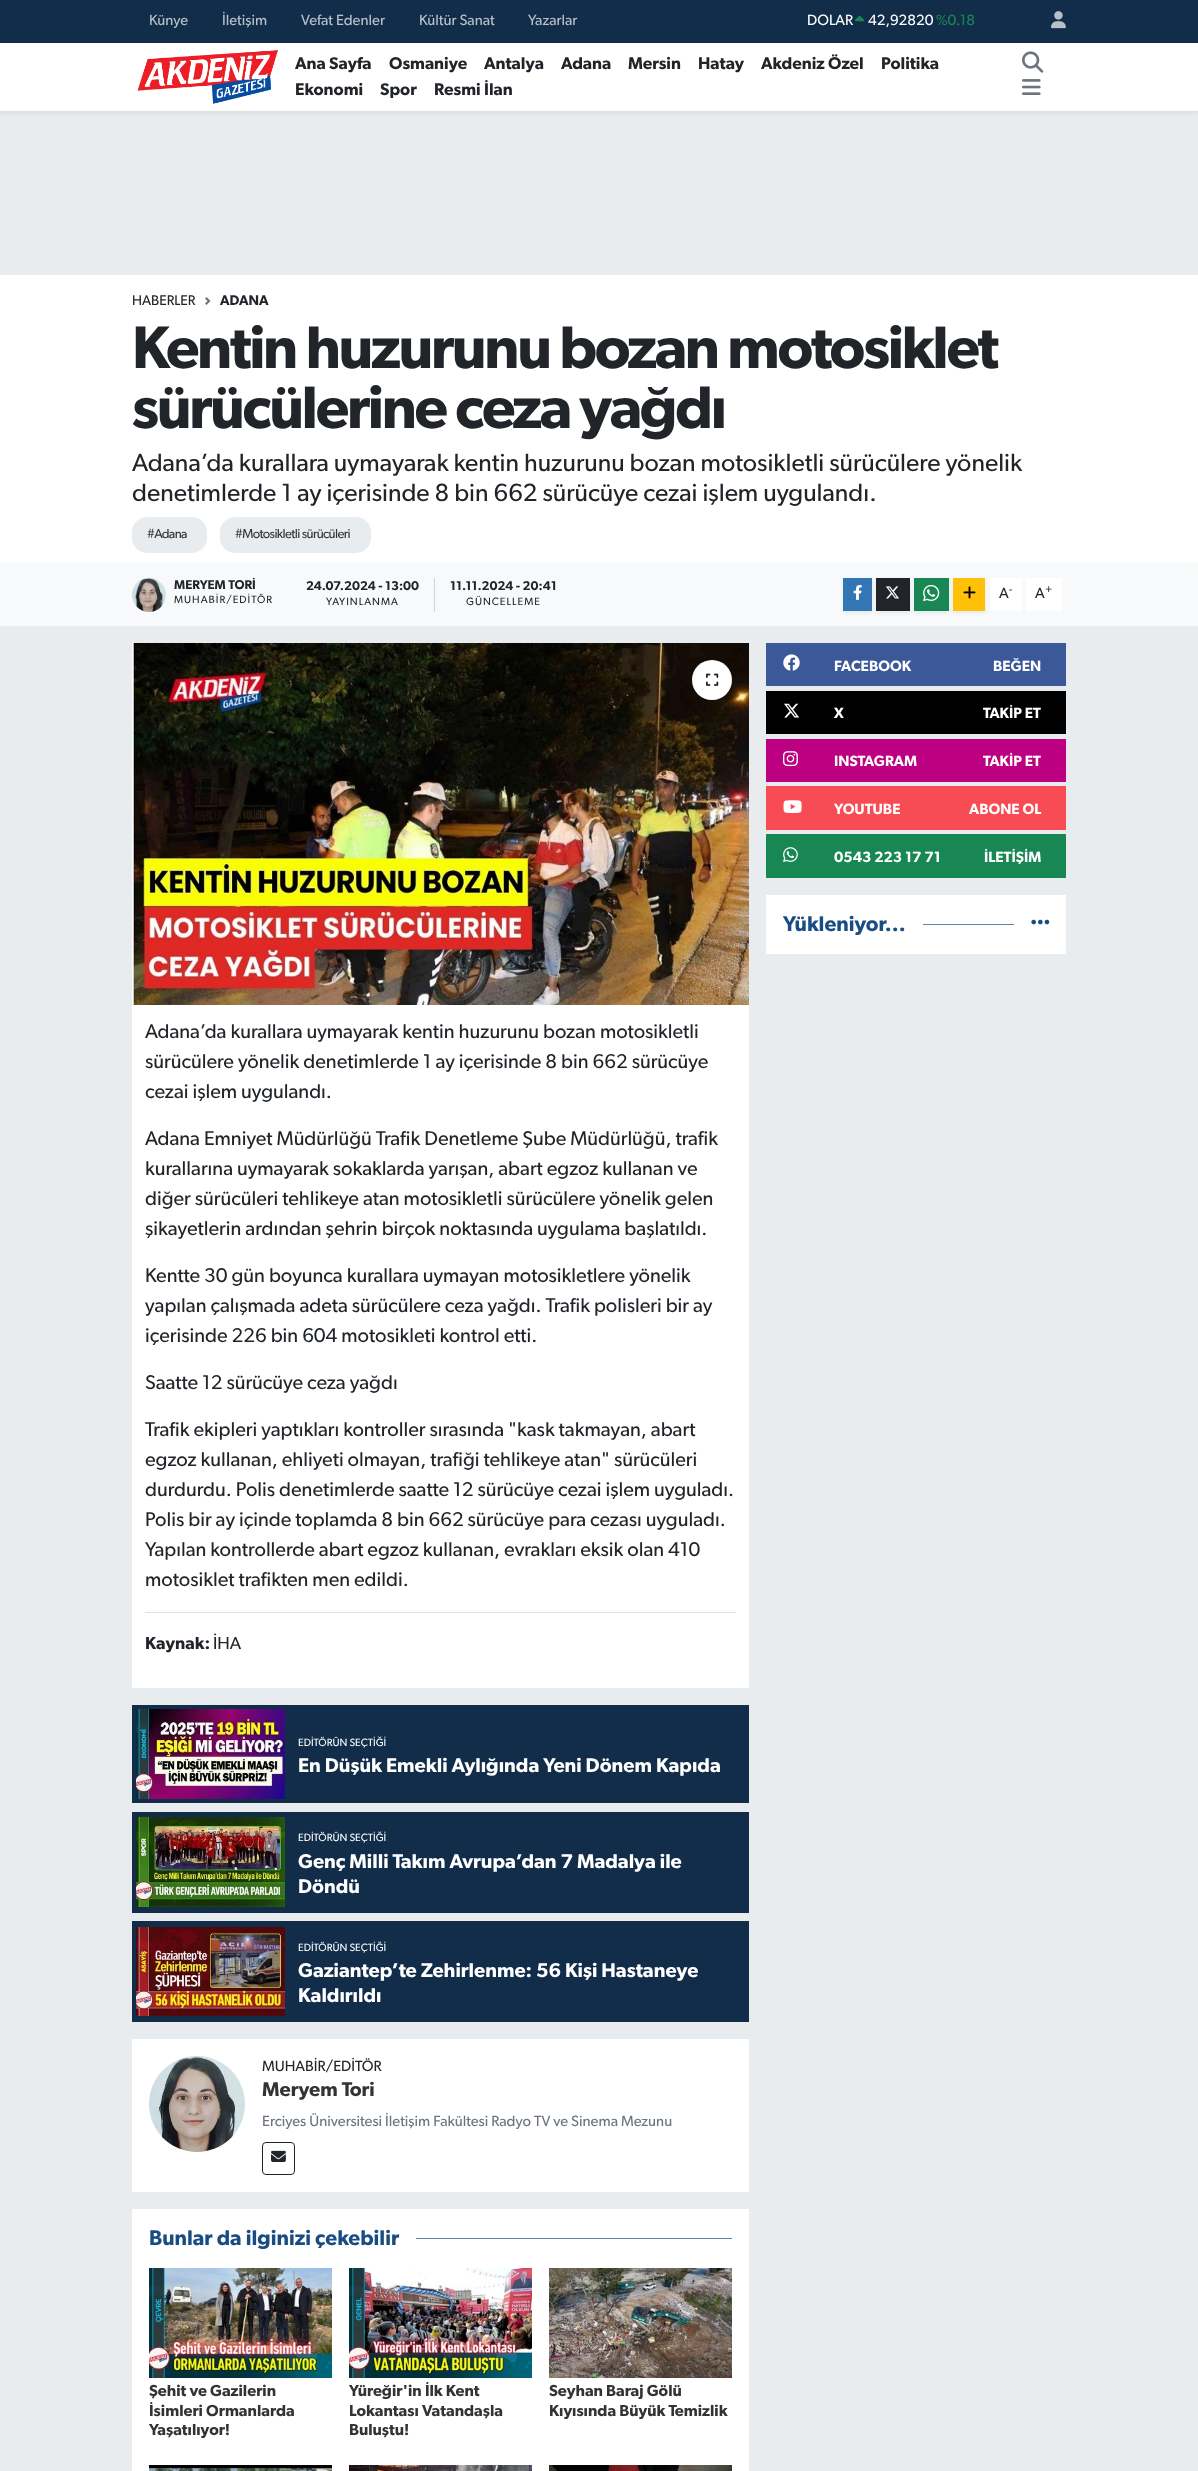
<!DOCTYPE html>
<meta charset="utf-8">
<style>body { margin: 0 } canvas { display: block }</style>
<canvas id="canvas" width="1198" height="2471"></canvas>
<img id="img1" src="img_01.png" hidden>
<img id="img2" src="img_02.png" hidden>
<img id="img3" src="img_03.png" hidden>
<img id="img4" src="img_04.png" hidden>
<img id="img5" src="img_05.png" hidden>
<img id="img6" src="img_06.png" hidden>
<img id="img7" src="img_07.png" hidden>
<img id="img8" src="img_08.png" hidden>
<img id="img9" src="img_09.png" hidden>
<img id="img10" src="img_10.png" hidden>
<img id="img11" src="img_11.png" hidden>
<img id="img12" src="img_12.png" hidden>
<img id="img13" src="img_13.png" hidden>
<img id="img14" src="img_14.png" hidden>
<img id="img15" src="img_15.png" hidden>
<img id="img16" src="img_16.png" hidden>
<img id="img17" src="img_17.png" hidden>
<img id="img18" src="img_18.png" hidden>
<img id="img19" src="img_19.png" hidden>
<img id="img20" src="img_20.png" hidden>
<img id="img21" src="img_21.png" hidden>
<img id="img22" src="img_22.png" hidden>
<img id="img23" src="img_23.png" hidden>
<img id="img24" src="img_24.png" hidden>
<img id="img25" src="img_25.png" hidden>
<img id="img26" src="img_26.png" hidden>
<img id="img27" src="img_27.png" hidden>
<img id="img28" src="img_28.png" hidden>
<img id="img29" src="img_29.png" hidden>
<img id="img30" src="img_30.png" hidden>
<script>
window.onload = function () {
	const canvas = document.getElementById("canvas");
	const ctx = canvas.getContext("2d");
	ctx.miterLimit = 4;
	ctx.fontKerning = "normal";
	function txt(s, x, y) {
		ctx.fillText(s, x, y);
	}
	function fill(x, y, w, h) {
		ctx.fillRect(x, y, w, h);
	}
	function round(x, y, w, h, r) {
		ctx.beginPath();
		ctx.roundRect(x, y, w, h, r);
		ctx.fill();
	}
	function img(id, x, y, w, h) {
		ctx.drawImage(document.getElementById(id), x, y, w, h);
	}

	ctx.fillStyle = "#E9ECEF";
	fill(0, 0, 1198, 2471);
	ctx.fillStyle = "#122D4A";
	fill(0, 0, 1198, 43);
	img("img1", 855, 15, 10, 7);
	img("img2", 1051, 11, 15, 18);
	ctx.fillStyle = "rgba(0, 0, 0, 0.07)";
	ctx.filter = "blur(2px)";
	ctx.beginPath();
	ctx.rect(0, 45, 1198, 68);
	ctx.fill();
	ctx.filter = "none";
	ctx.fillStyle = "#FFFFFF";
	fill(0, 43, 1198, 68);
	img("img3", 137, 50, 141, 54);
	img("img4", 1022, 51, 22, 22);
	img("img5", 1022, 79, 19, 16);
	fill(0, 275, 1198, 288);
	img("img6", 205, 297, 6, 8);
	ctx.fillStyle = "#E9ECEF";
	round(132, 517, 75, 36, 15);
	round(220, 517, 151, 36, 15);
	ctx.fillStyle = "#F8F9FA";
	fill(0, 563, 1198, 63);
	img("img7", 132, 578, 34, 34);
	ctx.fillStyle = "#CED4DA";
	fill(434, 578, 1, 34);
	ctx.fillStyle = "rgba(0, 0, 0, 0.07)";
	ctx.filter = "blur(2px)";
	ctx.beginPath();
	ctx.rect(843, 580, 29, 33);
	ctx.fill();
	ctx.filter = "none";
	ctx.fillStyle = "#3276B3";
	fill(843, 578, 29, 33);
	img("img8", 853, 585, 9, 15);
	ctx.fillStyle = "rgba(0, 0, 0, 0.07)";
	ctx.filter = "blur(2px)";
	ctx.beginPath();
	ctx.rect(876, 580, 34, 33);
	ctx.fill();
	ctx.filter = "none";
	ctx.fillStyle = "#212529";
	fill(876, 578, 34, 33);
	img("img9", 885, 586, 14, 13);
	ctx.fillStyle = "rgba(0, 0, 0, 0.07)";
	ctx.filter = "blur(2px)";
	ctx.beginPath();
	ctx.rect(914, 580, 35, 33);
	ctx.fill();
	ctx.filter = "none";
	ctx.fillStyle = "#198754";
	fill(914, 578, 35, 33);
	img("img10", 923, 584, 17, 18);
	ctx.fillStyle = "#FFFFFF";
	fill(990, 578, 32, 33);
	ctx.fillStyle = "rgba(0, 0, 0, 0.07)";
	ctx.filter = "blur(2px)";
	ctx.beginPath();
	ctx.rect(953, 580, 32, 33);
	ctx.fill();
	ctx.filter = "none";
	ctx.fillStyle = "#FFC107";
	fill(953, 578, 32, 33);
	img("img11", 963, 586, 13, 13);
	ctx.fillStyle = "#FFFFFF";
	fill(1026, 578, 36, 33);
	ctx.fillStyle = "#3B5998";
	fill(766, 643, 300, 43);
	img("img12", 783, 654, 17, 17);
	ctx.fillStyle = "#000000";
	fill(766, 691, 300, 43);
	img("img13", 784, 703, 15, 15);
	ctx.fillStyle = "#BD0082";
	fill(766, 739, 300, 43);
	img("img14", 783, 751, 15, 16);
	ctx.fillStyle = "#F74C53";
	fill(766, 786, 300, 44);
	img("img15", 783, 800, 19, 13);
	ctx.fillStyle = "#198754";
	fill(766, 834, 300, 44);
	img("img16", 783, 847, 15, 15);
	ctx.fillStyle = "#FFFFFF";
	fill(766, 895, 300, 59);
	ctx.fillStyle = "#5E82A8";
	fill(923, 924, 91, 1);
	img("img17", 1031, 919, 19, 6);
	img("img18", 132, 643, 617, 362);
	ctx.fillStyle = "#FFFFFF";
	ctx.beginPath();
	ctx.arc(712, 680, 20, 0, Math.PI * 2);
	ctx.fill();
	img("img19", 706, 673, 13, 13);
	fill(132, 1005, 617, 683);
	ctx.fillStyle = "#DEE2E6";
	fill(145, 1612, 591, 1);
	ctx.fillStyle = "#122D4A";
	fill(132, 1705, 617, 98);
	img("img20", 136, 1709, 149, 90);
	fill(132, 1812, 617, 101);
	img("img21", 136, 1817, 149, 90);
	fill(132, 1921, 617, 101);
	img("img22", 136, 1927, 149, 89);
	ctx.fillStyle = "#FFFFFF";
	fill(132, 2039, 617, 153);
	img("img23", 149, 2056, 96, 96);
	ctx.beginPath();
	ctx.roundRect(262.5, 2142.5, 32, 32, 3.5);
	ctx.strokeStyle = "#212529";
	ctx.stroke();
	img("img24", 271, 2150, 15, 12);
	fill(132, 2209, 617, 262);
	ctx.fillStyle = "#5E82A8";
	fill(416, 2238, 316, 1);
	img("img25", 149, 2268, 183, 110);
	img("img26", 349, 2268, 183, 110);
	img("img27", 549, 2268, 183, 110);
	img("img28", 149, 2465, 183, 6);
	img("img29", 349, 2465, 183, 6);
	img("img30", 549, 2465, 183, 6);
	ctx.font = "14.9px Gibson";
	ctx.fillStyle = "#B8C0C9";
	txt("Künye", 149, 25);
	txt("İletişim", 222, 25);
	txt("Vefat Edenler", 301, 25);
	txt("Kültür Sanat", 419, 25);
	txt("Yazarlar", 528, 25);
	ctx.fillStyle = "#FFFFFF";
	txt("DOLAR", 807, 25);
	txt("42,92820", 868, 25);
	ctx.fillStyle = "#198754";
	txt("%0.18", 936, 25);
	ctx.font = "600 17px Gibson";
	ctx.fillStyle = "#212529";
	txt("Ana Sayfa", 295, 69);
	txt("Osmaniye", 389, 69);
	txt("Antalya", 484, 69);
	txt("Adana", 561, 69);
	txt("Mersin", 628, 69);
	txt("Hatay", 698, 69);
	txt("Akdeniz Özel", 761, 69);
	txt("Politika", 881, 69);
	txt("Ekonomi", 295, 95);
	txt("Spor", 380, 95);
	txt("Resmi İlan", 434, 95);
	ctx.font = "14px Gibson";
	txt("HABERLER", 132, 305);
	ctx.font = "600 14px Gibson";
	txt("ADANA", 220, 305);
	ctx.letterSpacing = "-2.3px";
	ctx.font = "600 60px Gibson";
	txt("Kentin huzurunu bozan motosiklet", 132, 368);
	txt("sürücülerine ceza yağdı", 132, 428);
	ctx.letterSpacing = "0px";
	ctx.font = "25px Gibson";
	txt("Adana’da kurallara uymayarak kentin huzurunu bozan motosikletli sürücülere yönelik", 132, 471);
	txt("denetimlerde 1 ay içerisinde 8 bin 662 sürücüye cezai işlem uygulandı.", 132, 501);
	ctx.letterSpacing = "-0.6px";
	ctx.font = "13px Gibson";
	ctx.fillStyle = "#333333";
	txt("#Adana", 147, 538);
	txt("#Motosikletli sürücüleri", 235, 538);
	ctx.letterSpacing = "0px";
	ctx.font = "600 12.75px Gibson";
	ctx.fillStyle = "#212529";
	txt("MERYEM TORİ", 174, 589);
	ctx.letterSpacing = "1px";
	ctx.font = "10.6px Gibson";
	txt("MUHABİR/EDİTÖR", 174, 603);
	ctx.letterSpacing = "0px";
	ctx.font = "600 12.75px Gibson";
	txt("24.07.2024 - 13:00", 306, 590);
	ctx.letterSpacing = "1px";
	ctx.font = "10.6px Gibson";
	txt("YAYINLANMA", 326, 605);
	ctx.letterSpacing = "0px";
	ctx.font = "600 12.75px Gibson";
	txt("11.11.2024 - 20:41", 450, 590);
	ctx.letterSpacing = "1px";
	ctx.font = "10.6px Gibson";
	txt("GÜNCELLEME", 466, 605);
	ctx.letterSpacing = "0px";
	ctx.font = "14.9px Gibson";
	txt("A", 999, 598);
	ctx.font = "11px Gibson";
	txt("-", 1009, 593);
	ctx.font = "14.9px Gibson";
	txt("A", 1035, 598);
	ctx.font = "11px Gibson";
	txt("+", 1045, 593);
	ctx.font = "600 14.9px Gibson";
	ctx.fillStyle = "#FFFFFF";
	txt("FACEBOOK", 834, 671);
	txt("BEĞEN", 993, 671);
	txt("X", 834, 718);
	txt("TAKİP ET", 983, 718);
	txt("INSTAGRAM", 834, 766);
	txt("TAKİP ET", 983, 766);
	txt("YOUTUBE", 834, 814);
	txt("ABONE OL", 969, 814);
	txt("0543 223 17 71", 834, 862);
	txt("İLETİŞİM", 984, 862);
	ctx.font = "600 21.25px Gibson";
	ctx.fillStyle = "#194C82";
	txt("Yükleniyor...", 783, 931);
	ctx.font = "20px Gibson";
	ctx.fillStyle = "#212529";
	txt("Adana’da kurallara uymayarak kentin huzurunu bozan motosikletli", 145, 1038);
	txt("sürücülere yönelik denetimlerde 1 ay içerisinde 8 bin 662 sürücüye", 145, 1068);
	txt("cezai işlem uygulandı.", 145, 1098);
	txt("Adana Emniyet Müdürlüğü Trafik Denetleme Şube Müdürlüğü, trafik", 145, 1145);
	txt("kurallarına uymayarak sokaklarda yarışan, abart egzoz kullanan ve", 145, 1175);
	txt("diğer sürücüleri tehlikeye atan motosikletli sürücülere yönelik gelen", 145, 1205);
	txt("şikayetlerin ardından şehrin birçok noktasında uygulama başlatıldı.", 145, 1235);
	txt("Kentte 30 gün boyunca kurallara uymayan motosikletlere yönelik", 145, 1282);
	txt("yapılan çalışmada adeta sürücülere ceza yağdı. Trafik polisleri bir ay", 145, 1312);
	txt("içerisinde 226 bin 604 motosikleti kontrol etti.", 145, 1342);
	txt("Saatte 12 sürücüye ceza yağdı", 145, 1389);
	txt("Trafik ekipleri yaptıkları kontroller sırasında \"kask takmayan, abart", 145, 1436);
	txt("egzoz kullanan, ehliyeti olmayan, trafiği tehlikeye atan\" sürücüleri", 145, 1466);
	txt("durdurdu. Polis denetimlerde saatte 12 sürücüye cezai işlem uyguladı.", 145, 1496);
	txt("Polis bir ay içinde toplamda 8 bin 662 sürücüye para cezası uyguladı.", 145, 1526);
	txt("Yapılan kontrollerde abart egzoz kullanan, evrakları eksik olan 410", 145, 1556);
	txt("motosiklet trafikten men edildi.", 145, 1586);
	ctx.font = "600 17.5px Gibson";
	txt("Kaynak:", 145, 1649);
	ctx.font = "17.5px Gibson";
	txt("İHA", 213, 1649);
	ctx.font = "10.6px Gibson";
	ctx.fillStyle = "#FFFFFF";
	txt("EDİTÖRÜN SEÇTİĞİ", 298, 1746);
	ctx.font = "600 20px Gibson";
	txt("En Düşük Emekli Aylığında Yeni Dönem Kapıda", 298, 1772);
	ctx.font = "10.6px Gibson";
	txt("EDİTÖRÜN SEÇTİĞİ", 298, 1841);
	ctx.font = "600 20px Gibson";
	txt("Genç Milli Takım Avrupa’dan 7 Madalya ile", 298, 1868);
	txt("Döndü", 298, 1893);
	ctx.font = "10.6px Gibson";
	txt("EDİTÖRÜN SEÇTİĞİ", 298, 1951);
	ctx.font = "600 20px Gibson";
	txt("Gaziantep’te Zehirlenme: 56 Kişi Hastaneye", 298, 1977);
	txt("Kaldırıldı", 298, 2002);
	ctx.font = "14.9px Gibson";
	ctx.fillStyle = "#212529";
	txt("MUHABİR/EDİTÖR", 262, 2071);
	ctx.font = "600 20px Gibson";
	ctx.fillStyle = "#333333";
	txt("Meryem Tori", 262, 2096);
	ctx.font = "14.9px Gibson";
	ctx.fillStyle = "#6C757D";
	txt("Erciyes Üniversitesi İletişim Fakültesi Radyo TV ve Sinema Mezunu", 262, 2126);
	ctx.font = "600 21.25px Gibson";
	ctx.fillStyle = "#194C82";
	txt("Bunlar da ilginizi çekebilir", 149, 2245);
	ctx.font = "600 16px Gibson";
	ctx.fillStyle = "#333333";
	txt("Şehit ve Gazilerin", 149, 2396);
	txt("İsimleri Ormanlarda", 149, 2416);
	txt("Yaşatılıyor!", 149, 2435);
	txt("Yüreğir'in İlk Kent", 349, 2396);
	txt("Lokantası Vatandaşla", 349, 2416);
	txt("Buluştu!", 349, 2435);
	txt("Seyhan Baraj Gölü", 549, 2396);
	txt("Kıyısında Büyük Temizlik", 549, 2416);
};
</script>
